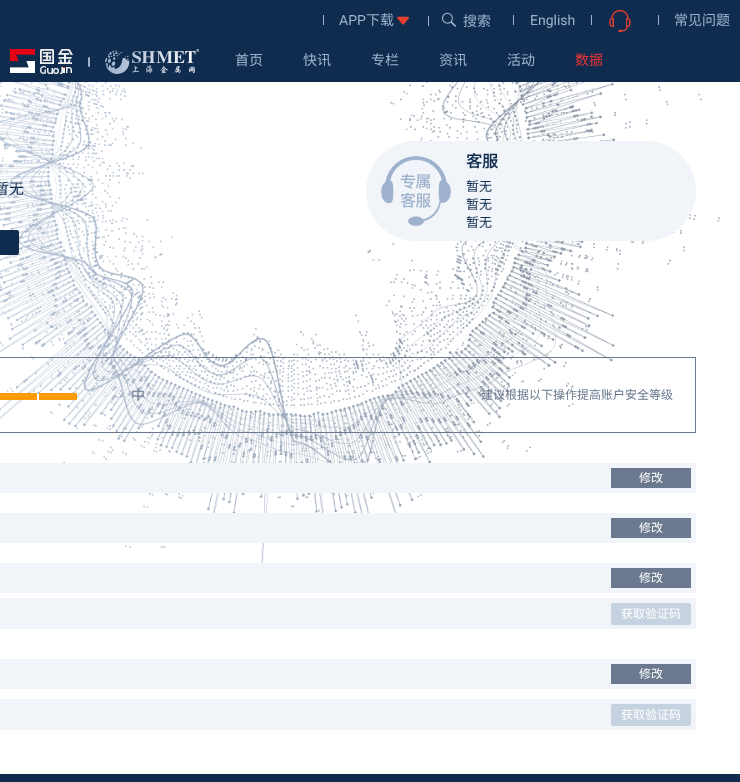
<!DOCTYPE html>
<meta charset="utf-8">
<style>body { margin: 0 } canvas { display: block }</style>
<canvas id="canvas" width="740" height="782"></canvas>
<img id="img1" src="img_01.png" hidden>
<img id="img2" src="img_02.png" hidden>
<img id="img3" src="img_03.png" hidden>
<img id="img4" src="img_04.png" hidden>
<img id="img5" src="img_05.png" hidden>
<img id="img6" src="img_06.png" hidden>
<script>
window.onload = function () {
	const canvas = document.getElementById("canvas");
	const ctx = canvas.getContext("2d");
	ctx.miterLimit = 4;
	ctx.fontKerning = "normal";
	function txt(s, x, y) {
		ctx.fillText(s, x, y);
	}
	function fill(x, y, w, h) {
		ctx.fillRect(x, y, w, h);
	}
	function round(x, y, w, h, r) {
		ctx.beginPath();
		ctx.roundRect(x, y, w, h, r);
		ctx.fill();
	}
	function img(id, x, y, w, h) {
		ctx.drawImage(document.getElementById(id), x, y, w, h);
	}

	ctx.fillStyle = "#FFFFFF";
	fill(0, 0, 740, 782);
	ctx.fillStyle = "#0F2C4F";
	fill(0, 0, 740, 82);
	ctx.fillStyle = "#9EB2CD";
	fill(323, 15, 1, 10);
	img("img1", 397, 16, 12, 9);
	fill(428, 16, 1, 10);
	img("img2", 442, 12, 14, 15);
	fill(513, 15, 1, 10);
	fill(591, 15, 1, 10);
	img("img3", 609, 9, 22, 23);
	fill(658, 15, 1, 10);
	img("img4", 10, 49, 190, 25);
	img("img5", 0, 82, 720, 481);
	ctx.fillStyle = "#0F2C4F";
	round(-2, 230, 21, 25, 2);
	ctx.fillStyle = "#F1F4F8";
	round(366, 141, 330, 100, 50);
	img("img6", 381, 156, 70, 70);
	ctx.strokeStyle = "#6A798E";
	ctx.strokeRect(-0.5, 357.5, 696, 75);
	ctx.fillStyle = "#FF9D09";
	fill(0, 393, 37, 7);
	fill(39, 393, 38, 7);
	ctx.fillStyle = "#F1F4F8";
	fill(0, 463, 696, 30);
	ctx.fillStyle = "#6A798E";
	fill(611, 468, 80, 20);
	ctx.fillStyle = "#F1F4F8";
	fill(0, 513, 696, 30);
	ctx.fillStyle = "#6A798E";
	fill(611, 518, 80, 20);
	ctx.fillStyle = "#F1F4F8";
	fill(0, 563, 696, 30);
	ctx.fillStyle = "#6A798E";
	fill(611, 568, 80, 20);
	ctx.fillStyle = "#F1F4F8";
	fill(0, 598, 696, 31);
	ctx.fillStyle = "#C7D2E1";
	round(611, 603, 80, 22, 2);
	ctx.fillStyle = "#F1F4F8";
	fill(0, 659, 696, 30);
	ctx.fillStyle = "#6A798E";
	fill(611, 664, 80, 20);
	ctx.fillStyle = "#F1F4F8";
	fill(0, 699, 696, 31);
	ctx.fillStyle = "#C7D2E1";
	round(611, 704, 80, 22, 2);
	ctx.fillStyle = "#0F2C4F";
	fill(0, 774, 740, 8);
	ctx.font = "14px Roboto";
	ctx.fillStyle = "#9EB2CD";
	txt("APP", 339, 25);
	ctx.font = "14px Noto Sans CJK SC";
	txt("下载", 366, 25);
	txt("搜索", 463, 26);
	ctx.font = "14px Roboto";
	txt("English", 530, 25);
	ctx.font = "14px Noto Sans CJK SC";
	txt("常见问题", 674, 25);
	txt("首页", 235, 65);
	txt("快讯", 303, 65);
	txt("专栏", 371, 65);
	txt("资讯", 439, 65);
	txt("活动", 507, 65);
	ctx.fillStyle = "#EB3434";
	txt("数据", 575, 65);
	ctx.font = "15px Noto Sans CJK SC";
	ctx.fillStyle = "#0F2C4F";
	txt("暂无", -6, 194);
	ctx.font = "bold 16px Noto Sans CJK SC";
	txt("客服", 466, 167);
	ctx.font = "13px Noto Sans CJK SC";
	txt("暂无", 466, 191);
	txt("暂无", 466, 209);
	txt("暂无", 466, 227);
	ctx.font = "14px Noto Sans CJK SC";
	ctx.fillStyle = "#6A798E";
	txt("中", 131, 400);
	ctx.font = "12px Noto Sans CJK SC";
	txt("建议根据以下操作提高账户安全等级", 481, 399);
	ctx.fillStyle = "#FFFFFF";
	txt("修改", 639, 482);
	txt("修改", 639, 532);
	txt("修改", 639, 582);
	txt("获取验证码", 621, 618);
	txt("修改", 639, 678);
	txt("获取验证码", 621, 719);
};
</script>
